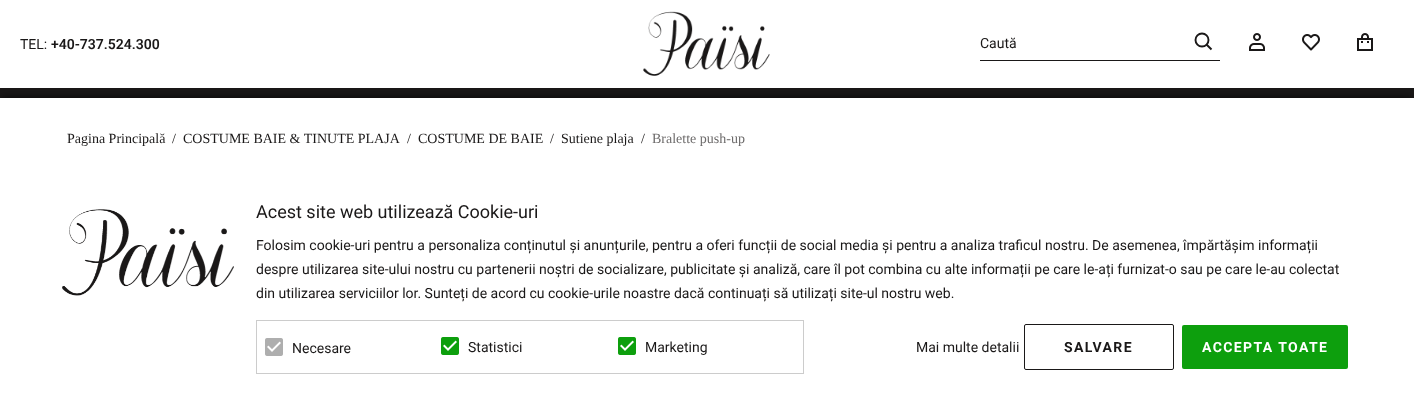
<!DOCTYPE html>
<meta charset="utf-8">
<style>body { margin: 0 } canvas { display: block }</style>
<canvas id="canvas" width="1414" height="414"></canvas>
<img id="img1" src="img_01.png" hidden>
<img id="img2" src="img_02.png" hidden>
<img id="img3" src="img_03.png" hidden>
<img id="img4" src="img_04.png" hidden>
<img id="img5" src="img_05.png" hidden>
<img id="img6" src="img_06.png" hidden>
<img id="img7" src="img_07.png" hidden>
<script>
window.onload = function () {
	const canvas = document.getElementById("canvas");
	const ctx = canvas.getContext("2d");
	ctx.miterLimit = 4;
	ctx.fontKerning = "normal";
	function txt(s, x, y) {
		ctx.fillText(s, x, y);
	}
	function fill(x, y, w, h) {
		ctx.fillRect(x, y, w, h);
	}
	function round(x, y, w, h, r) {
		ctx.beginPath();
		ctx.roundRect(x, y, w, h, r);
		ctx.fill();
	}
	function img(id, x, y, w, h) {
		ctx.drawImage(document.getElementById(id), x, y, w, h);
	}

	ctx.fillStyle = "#FFFFFF";
	fill(0, 0, 1414, 414);
	img("img1", 643, 11, 127, 65);
	ctx.fillStyle = "#1A1818";
	fill(980, 60, 240, 1);
	ctx.beginPath();
	ctx.arc(1202, 40, 6.5, 0, Math.PI * 2);
	ctx.strokeStyle = "#1A1818";
	ctx.lineWidth = 1.9;
	ctx.stroke();
	ctx.beginPath();
	ctx.moveTo(1211.5, 49.5);
	ctx.lineTo(1206.5, 44.5);
	ctx.stroke();
	img("img2", 1249, 33, 16, 18);
	img("img3", 1302, 34, 18, 17);
	img("img4", 1357, 33, 16, 18);
	fill(0, 88, 1414, 10);
	ctx.fillStyle = "rgba(0, 0, 0, 0.75)";
	ctx.filter = "blur(4px)";
	ctx.beginPath();
	ctx.rect(2, 98, 1410, 312);
	ctx.fill();
	ctx.filter = "none";
	ctx.fillStyle = "#FFFFFF";
	fill(0, 98, 1414, 316);
	img("img5", 62, 209, 172, 87);
	ctx.strokeStyle = "#CCCCCC";
	ctx.lineWidth = 1;
	ctx.strokeRect(256.5, 320.5, 547, 53);
	img("img6", 265, 338, 18, 18);
	img("img7", 441, 337, 18, 18);
	img("img7", 618, 337, 18, 18);
	ctx.beginPath();
	ctx.roundRect(1024.5, 324.5, 149, 45, 1.5);
	ctx.strokeStyle = "#1A1818";
	ctx.stroke();
	ctx.fillStyle = "#0D9F0D";
	round(1182, 325, 166, 44, 2);
	ctx.font = "14px Roboto";
	ctx.fillStyle = "#1A1818";
	txt("TEL:", 20, 49);
	ctx.font = "600 14px Roboto";
	txt("+40-737.524.300", 51, 49);
	ctx.font = "14px Roboto";
	txt("Caută", 980, 48);
	ctx.font = "14px Liberation Serif";
	txt("Pagina Principală", 67, 143);
	txt("/", 172, 143);
	txt("COSTUME BAIE & TINUTE PLAJA", 183, 143);
	txt("/", 407, 143);
	txt("COSTUME DE BAIE", 418, 143);
	txt("/", 550, 143);
	txt("Sutiene plaja", 561, 143);
	txt("/", 641, 143);
	ctx.fillStyle = "#6D6B6B";
	txt("Bralette push-up", 652, 143);
	ctx.font = "18px Roboto";
	ctx.fillStyle = "#1A1818";
	txt("Acest site web utilizează Cookie-uri", 256, 218);
	ctx.font = "14px Roboto";
	txt("Folosim cookie-uri pentru a personaliza conținutul și anunțurile, pentru a oferi funcții de social media și pentru a analiza traficul nostru. De asemenea, împărtășim informații", 256, 250);
	txt("despre utilizarea site-ului nostru cu partenerii noștri de socializare, publicitate și analiză, care îl pot combina cu alte informații pe care le-ați furnizat-o sau pe care le-au colectat", 256, 274);
	txt("din utilizarea serviciilor lor. Sunteți de acord cu cookie-urile noastre dacă continuați să utilizați site-ul nostru web.", 256, 298);
	txt("Necesare", 292, 353);
	txt("Statistici", 468, 352);
	txt("Marketing", 645, 352);
	txt("Mai multe detalii", 916, 352);
	ctx.letterSpacing = "1.4px";
	ctx.font = "bold 14px Roboto";
	txt("SALVARE", 1064, 352);
	ctx.fillStyle = "#FFFFFF";
	txt("ACCEPTA TOATE", 1202, 352);
};
</script>
